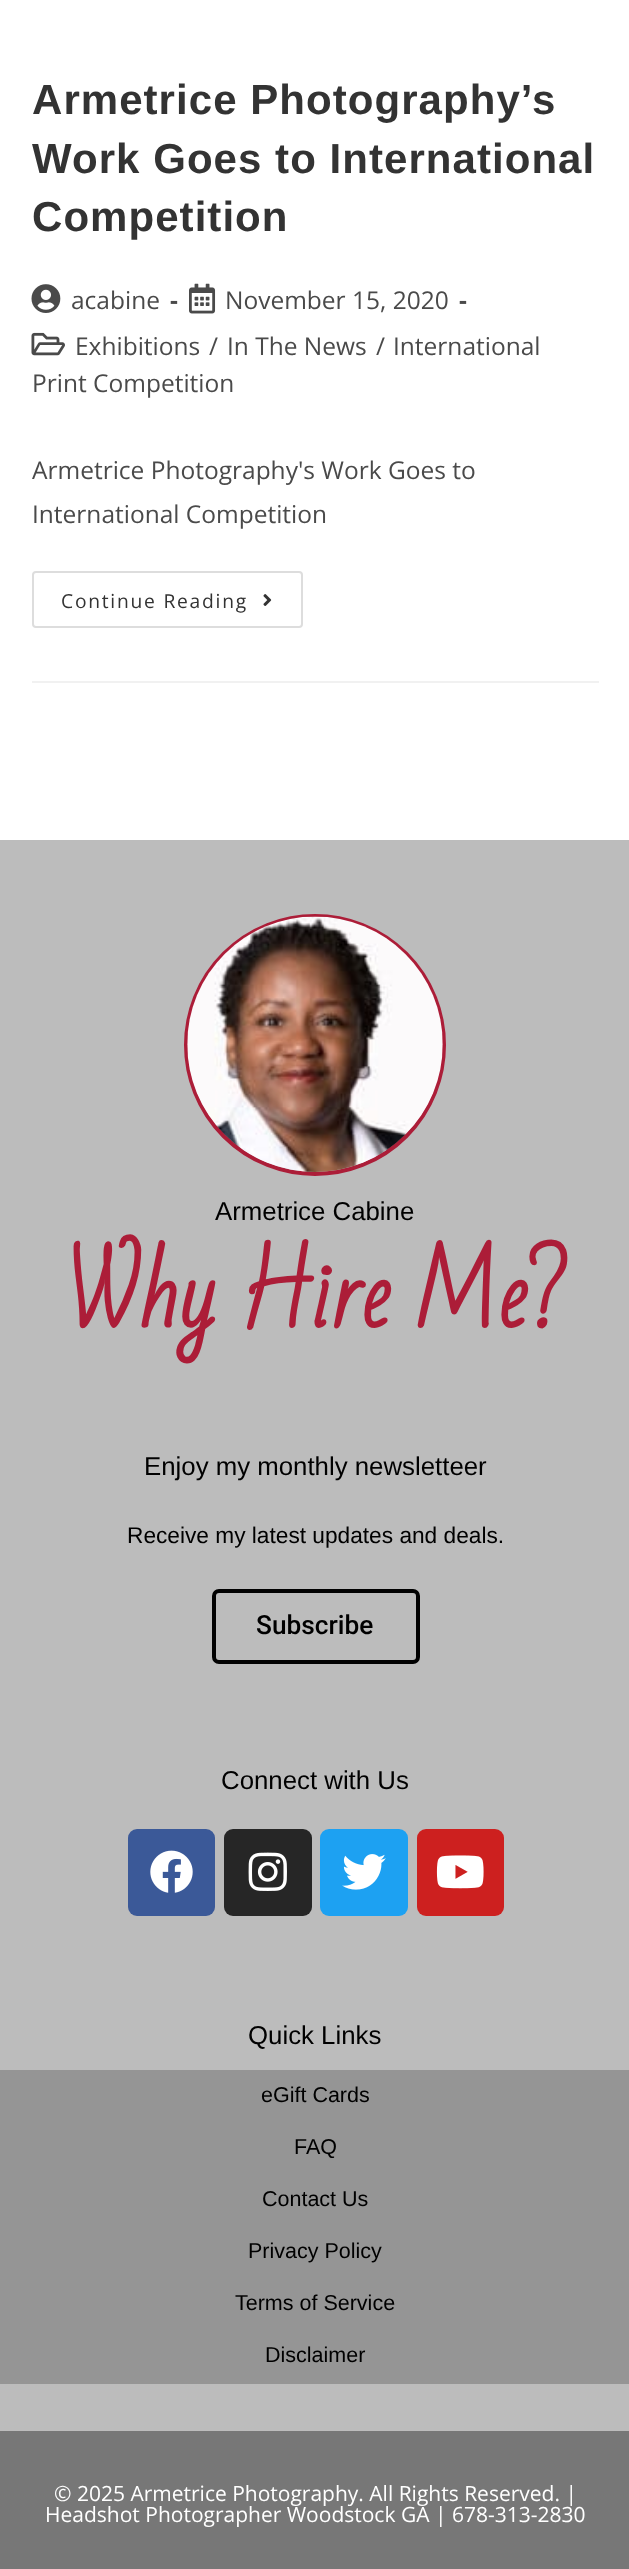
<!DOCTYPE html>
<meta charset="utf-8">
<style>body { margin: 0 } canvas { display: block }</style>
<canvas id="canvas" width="629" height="2569"></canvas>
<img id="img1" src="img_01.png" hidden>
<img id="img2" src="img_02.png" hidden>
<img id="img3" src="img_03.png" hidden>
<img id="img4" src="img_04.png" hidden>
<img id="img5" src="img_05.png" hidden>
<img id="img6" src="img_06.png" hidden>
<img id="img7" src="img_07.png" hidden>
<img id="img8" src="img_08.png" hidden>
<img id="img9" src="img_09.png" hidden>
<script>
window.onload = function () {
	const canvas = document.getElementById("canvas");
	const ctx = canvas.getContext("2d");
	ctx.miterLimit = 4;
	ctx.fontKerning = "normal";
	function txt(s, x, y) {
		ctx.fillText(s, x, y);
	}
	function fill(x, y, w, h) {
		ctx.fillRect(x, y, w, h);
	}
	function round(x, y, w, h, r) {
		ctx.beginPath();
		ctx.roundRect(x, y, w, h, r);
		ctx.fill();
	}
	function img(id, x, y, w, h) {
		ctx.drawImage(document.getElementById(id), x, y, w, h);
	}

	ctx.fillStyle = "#FFFFFF";
	fill(0, 0, 629, 2569);
	ctx.fillStyle = "#F1F1F1";
	fill(32, 681, 567, 2);
	img("img1", 31, 284, 30, 29);
	img("img2", 189, 283, 27, 31);
	img("img3", 31, 332, 34, 24);
	ctx.beginPath();
	ctx.roundRect(33, 572, 269, 55, 3);
	ctx.strokeStyle = "#DDDDDD";
	ctx.lineWidth = 2;
	ctx.stroke();
	img("img4", 263, 594, 9, 12);
	ctx.fillStyle = "#BCBCBC";
	fill(0, 840, 629, 1591);
	ctx.beginPath();
	ctx.arc(315, 1045, 129, 0, Math.PI * 2);
	ctx.strokeStyle = "#AC1D38";
	ctx.lineWidth = 4;
	ctx.stroke();
	img("img5", 187, 916, 256, 256);
	ctx.beginPath();
	ctx.roundRect(214, 1591, 204, 71, 5);
	ctx.strokeStyle = "#010101";
	ctx.stroke();
	ctx.fillStyle = "#3B5998";
	round(128, 1829, 87, 87, 9);
	img("img6", 150, 1850, 43, 43);
	ctx.fillStyle = "#262626";
	round(224, 1829, 88, 87, 9);
	img("img7", 248, 1852, 39, 39);
	ctx.fillStyle = "#1DA1F2";
	round(320, 1829, 88, 87, 9);
	img("img8", 342, 1854, 44, 36);
	ctx.fillStyle = "#CD201F";
	round(417, 1829, 87, 87, 9);
	img("img9", 436, 1855, 48, 34);
	ctx.fillStyle = "#959595";
	fill(0, 2070, 629, 314);
	ctx.fillStyle = "#777777";
	fill(0, 2431, 629, 138);
	ctx.letterSpacing = "1.05px";
	ctx.font = "bold 42px Liberation Sans";
	ctx.fillStyle = "#333333";
	txt("Armetrice Photography’s", 32, 114);
	txt("Work Goes to International", 32, 173);
	txt("Competition", 32, 231);
	ctx.letterSpacing = "0px";
	ctx.font = "24.5px Open Sans";
	ctx.fillStyle = "#4A4A4A";
	txt("acabine", 71, 309);
	ctx.font = "bold 24.5px Open Sans";
	txt("-", 170, 309);
	ctx.font = "24.5px Open Sans";
	txt("November 15, 2020", 225, 309);
	ctx.font = "bold 24.5px Open Sans";
	txt("-", 459, 309);
	ctx.font = "24.5px Open Sans";
	txt("Exhibitions", 75, 355);
	txt("/", 209, 355);
	txt("In The News", 227, 355);
	txt("/", 376, 355);
	txt("International", 393, 355);
	txt("Print Competition", 32, 392);
	txt("Armetrice Photography's Work Goes to", 32, 479);
	txt("International Competition", 32, 523);
	ctx.letterSpacing = "1.75px";
	ctx.font = "19.25px Open Sans";
	ctx.fillStyle = "#333333";
	txt("Continue Reading", 61, 608);
	ctx.letterSpacing = "0px";
	ctx.font = "25.8px Liberation Sans";
	ctx.fillStyle = "#000000";
	txt("Armetrice Cabine", 215, 1220);
	ctx.font = "bold 87.5px Bad Script";
	ctx.fillStyle = "#AC1D38";
	txt("Why Hire Me?", 65, 1327);
	ctx.font = "25.8px Liberation Sans";
	ctx.fillStyle = "#000000";
	txt("Enjoy my monthly newsletteer", 144, 1475);
	ctx.font = "22.7px Liberation Sans";
	txt("Receive my latest updates and deals.", 127, 1543);
	ctx.font = "500 26.25px Roboto";
	txt("Subscribe", 256, 1634);
	ctx.font = "25.8px Liberation Sans";
	txt("Connect with Us", 221, 1789);
	txt("Quick Links", 248, 2044);
	ctx.font = "21.5px Liberation Sans";
	txt("eGift Cards", 261, 2102);
	txt("FAQ", 294, 2154);
	txt("Contact Us", 262, 2206);
	txt("Privacy Policy", 248, 2258);
	txt("Terms of Service", 235, 2310);
	txt("Disclaimer", 265, 2362);
	ctx.font = "21px Open Sans";
	ctx.fillStyle = "#FFFFFF";
	txt("© 2025 Armetrice Photography. All Rights Reserved. |", 54, 2501);
	txt("Headshot Photographer Woodstock GA | 678-313-2830", 45, 2522);
};
</script>
